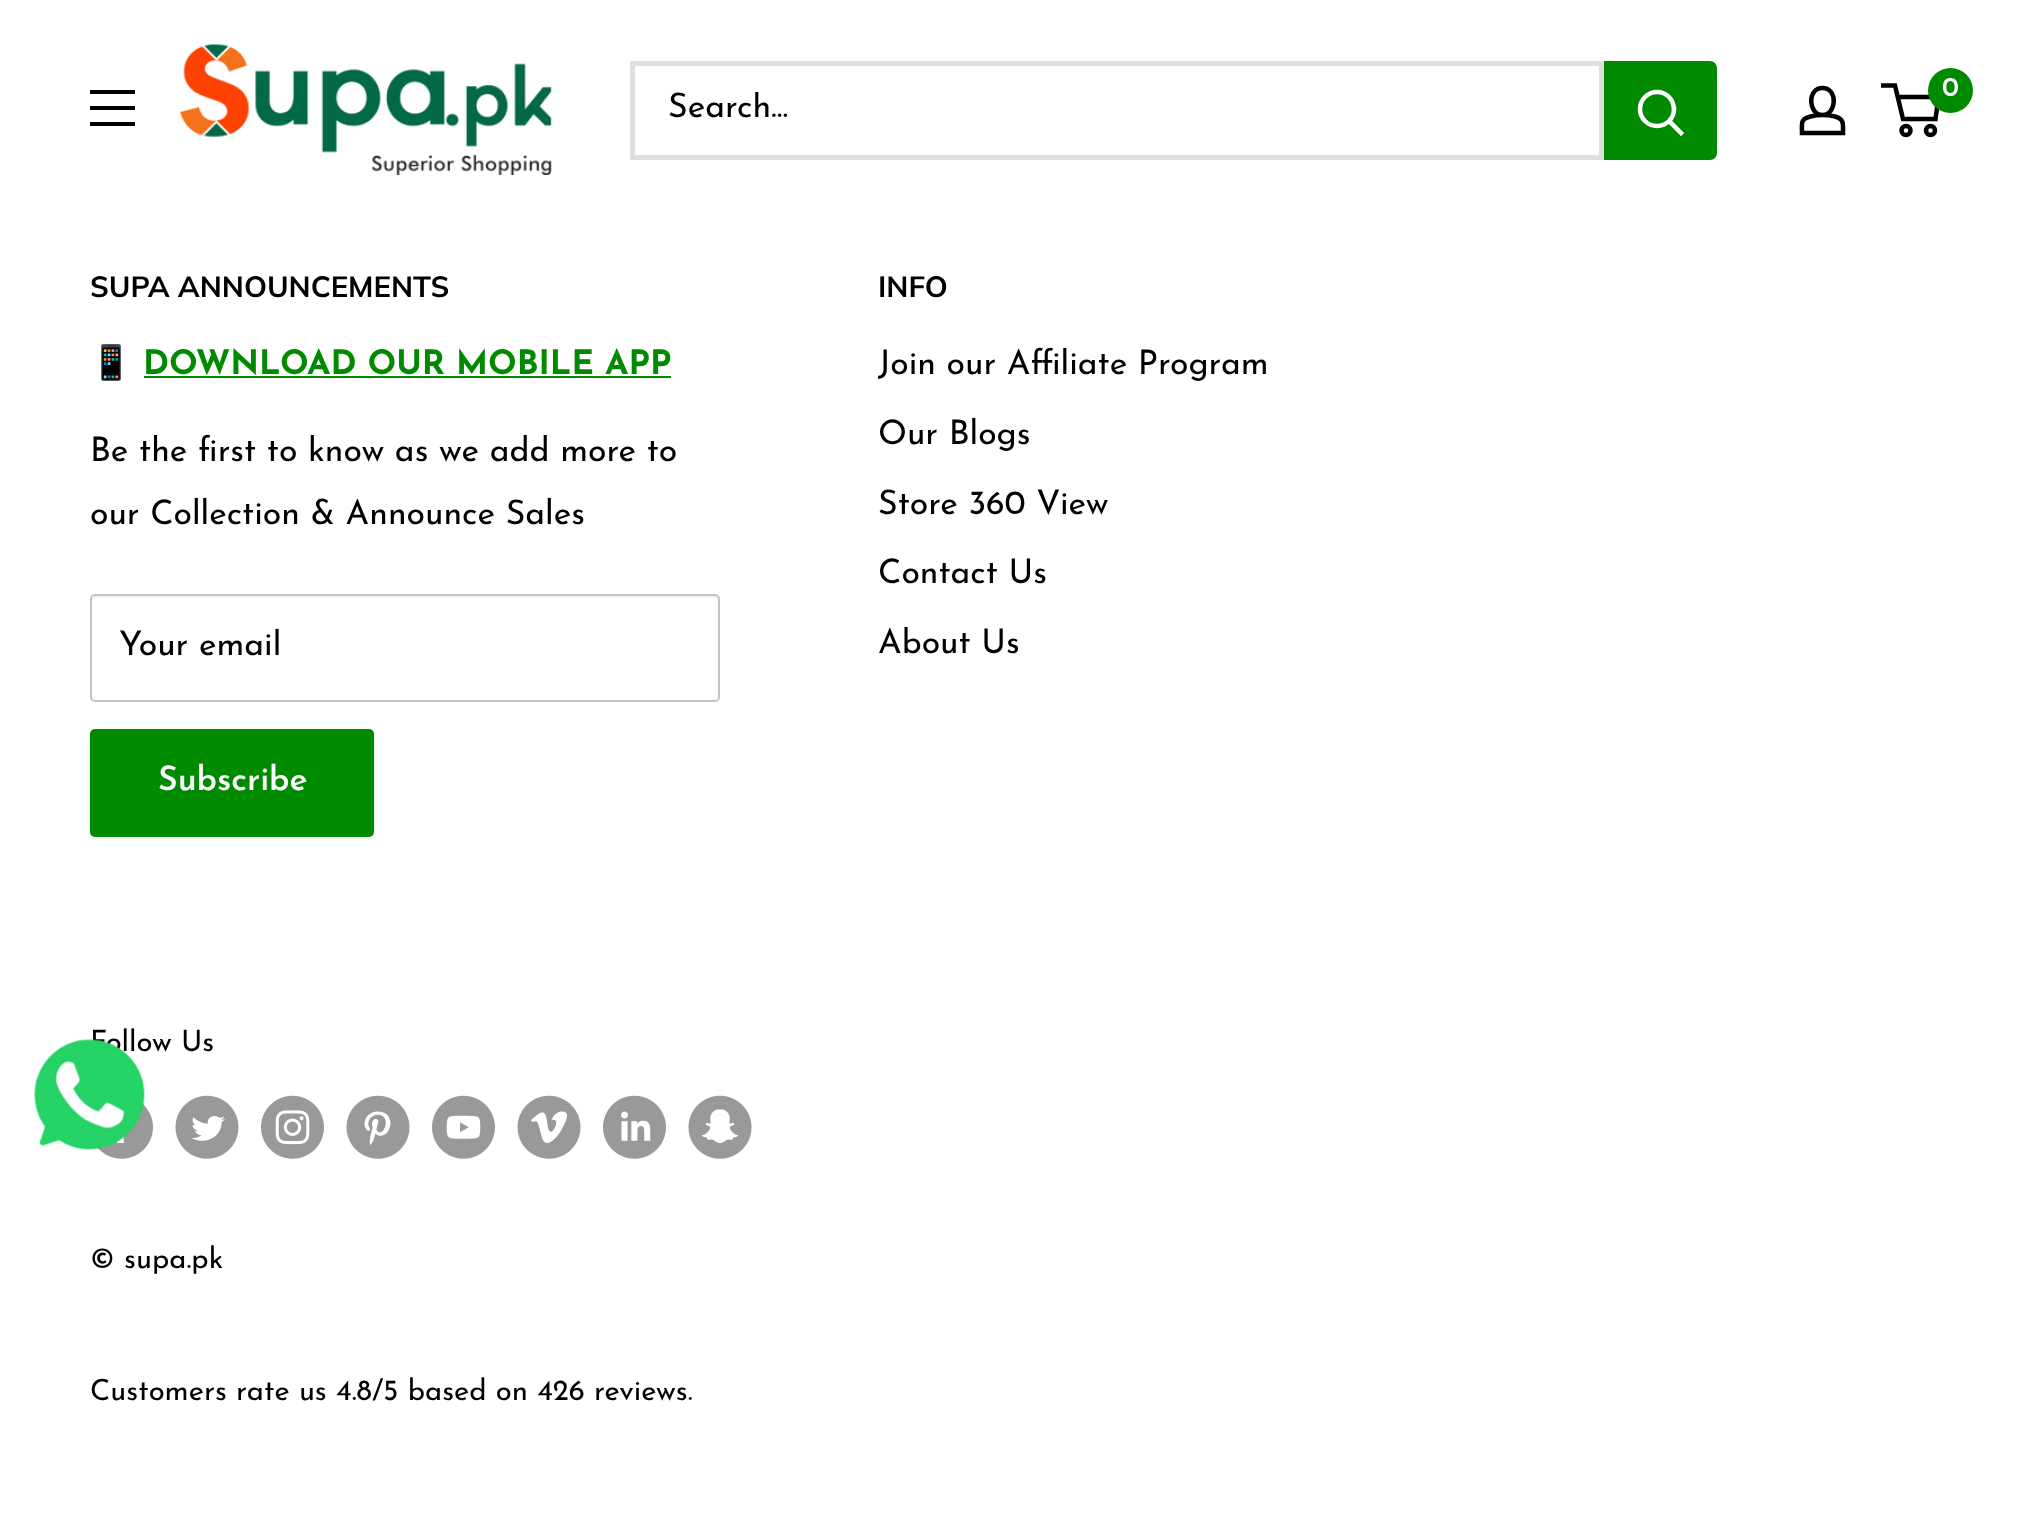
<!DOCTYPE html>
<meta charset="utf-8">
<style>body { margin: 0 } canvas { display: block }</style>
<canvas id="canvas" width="2040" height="1525"></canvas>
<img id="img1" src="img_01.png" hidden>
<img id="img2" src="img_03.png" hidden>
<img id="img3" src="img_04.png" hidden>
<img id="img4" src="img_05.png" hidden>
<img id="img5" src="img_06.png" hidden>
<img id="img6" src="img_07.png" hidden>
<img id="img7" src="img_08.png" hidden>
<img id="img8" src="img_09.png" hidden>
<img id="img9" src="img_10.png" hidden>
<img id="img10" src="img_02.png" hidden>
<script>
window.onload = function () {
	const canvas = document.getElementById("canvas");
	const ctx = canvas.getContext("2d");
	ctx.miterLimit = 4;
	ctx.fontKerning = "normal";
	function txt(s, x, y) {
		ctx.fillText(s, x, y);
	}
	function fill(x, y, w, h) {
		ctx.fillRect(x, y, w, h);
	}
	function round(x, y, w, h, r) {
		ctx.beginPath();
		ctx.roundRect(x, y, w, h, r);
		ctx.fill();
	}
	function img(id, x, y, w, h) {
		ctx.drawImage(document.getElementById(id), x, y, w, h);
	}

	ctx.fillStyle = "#FFFFFF";
	fill(0, 0, 2040, 1525);
	img("img1", 180, 44, 372, 131);
	ctx.beginPath();
	ctx.moveTo(1822.5, 115);
	ctx.bezierCurveTo(1826.5, 115, 1831, 115.5, 1835, 116.5);
	ctx.bezierCurveTo(1844.5, 119, 1843, 124.5, 1843, 133);
	ctx.lineTo(1802, 133);
	ctx.bezierCurveTo(1802, 123.5, 1800, 119, 1810.5, 116.5);
	ctx.bezierCurveTo(1814.5, 115.5, 1818.5, 115, 1822.5, 115);
	ctx.closePath();
	ctx.moveTo(1822.5, 115);
	ctx.bezierCurveTo(1808.5, 115, 1806.5, 88, 1822.5, 88);
	ctx.bezierCurveTo(1838.5, 88, 1836.5, 115, 1822.5, 115);
	ctx.closePath();
	ctx.strokeStyle = "#000000";
	ctx.lineWidth = 4.5;
	ctx.stroke();
	ctx.beginPath();
	ctx.arc(1906, 130.5, 4.5, 0, Math.PI * 2);
	ctx.stroke();
	ctx.beginPath();
	ctx.arc(1930.5, 130.5, 4.5, 0, Math.PI * 2);
	ctx.stroke();
	ctx.beginPath();
	ctx.moveTo(1897.5, 97);
	ctx.lineTo(1938.5, 97);
	ctx.lineTo(1935.5, 119);
	ctx.lineTo(1903, 119);
	ctx.lineTo(1895, 85.5);
	ctx.lineTo(1881, 85.5);
	ctx.stroke();
	ctx.fillStyle = "#008A00";
	ctx.beginPath();
	ctx.arc(1950.5, 90.5, 22.5, 0, Math.PI * 2);
	ctx.fill();
	ctx.fillStyle = "#000000";
	ctx.beginPath();
	ctx.moveTo(90, 122);
	ctx.lineTo(135, 122);
	ctx.lineTo(135, 126);
	ctx.lineTo(90, 126);
	ctx.closePath();
	ctx.moveTo(90, 90);
	ctx.lineTo(135, 90);
	ctx.lineTo(135, 94);
	ctx.lineTo(90, 94);
	ctx.closePath();
	ctx.moveTo(90, 106);
	ctx.lineTo(135, 106);
	ctx.lineTo(135, 110);
	ctx.lineTo(90, 110);
	ctx.closePath();
	ctx.fill("evenodd");
	ctx.strokeStyle = "#DFDFDF";
	ctx.lineWidth = 5;
	ctx.strokeRect(632.5, 63.5, 969, 94);
	ctx.fillStyle = "#008A00";
	ctx.beginPath();
	ctx.roundRect(1604, 61, 113, 99, [0, 7, 7, 0]);
	ctx.fill();
	ctx.beginPath();
	ctx.moveTo(1681, 133);
	ctx.lineTo(1669.5, 121.5);
	ctx.strokeStyle = "#FFFFFF";
	ctx.lineWidth = 4.5;
	ctx.lineCap = "square";
	ctx.stroke();
	ctx.beginPath();
	ctx.arc(1657, 109, 17, 0, Math.PI * 2);
	ctx.stroke();
	fill(144, 376, 527, 2);
	ctx.fillStyle = "#F4F4F4";
	ctx.beginPath();
	ctx.moveTo(94, 598);
	ctx.lineTo(716, 598);
	ctx.bezierCurveTo(717, 598, 718, 600, 718, 601);
	ctx.lineTo(718, 598);
	ctx.bezierCurveTo(718, 597, 717, 596, 716, 596);
	ctx.lineTo(94, 596);
	ctx.bezierCurveTo(93, 596, 92, 597, 92, 598);
	ctx.lineTo(92, 601);
	ctx.bezierCurveTo(92, 600, 93, 598, 94, 598);
	ctx.closePath();
	ctx.fill();
	ctx.beginPath();
	ctx.roundRect(91, 595, 628, 106, 4);
	ctx.strokeStyle = "#C4C4C8";
	ctx.lineWidth = 2;
	ctx.stroke();
	ctx.fillStyle = "#008A00";
	round(90, 729, 284, 108, 5);
	img("img2", 98, 1103, 55, 56);
	img("img3", 175, 1095, 64, 64);
	img("img4", 261, 1095, 63, 64);
	img("img5", 346, 1095, 64, 64);
	img("img6", 432, 1095, 63, 64);
	img("img7", 517, 1095, 64, 64);
	img("img8", 603, 1095, 63, 64);
	img("img9", 688, 1095, 64, 64);
	ctx.font = "600 27px Josefin Sans";
	ctx.fillStyle = "#FFFFFF";
	txt("0", 1942, 96);
	ctx.save();
	ctx.beginPath();
	ctx.rect(668, 92, 898, 34);
	ctx.clip();
	ctx.font = "33.75px Josefin Sans";
	ctx.fillStyle = "#000000";
	txt("Search...", 668, 117);
	ctx.restore();
	ctx.font = "bold 29.25px Muli";
	ctx.fillStyle = "#000000";
	txt("SUPA ANNOUNCEMENTS", 90, 297);
	ctx.font = "bold 33.75px Noto Color Emoji";
	txt("📱", 90, 374);
	ctx.font = "bold 33.75px Josefin Sans";
	ctx.fillStyle = "#008A00";
	txt("DOWNLOAD OUR MOBILE APP", 143, 374);
	ctx.font = "33.75px Josefin Sans";
	ctx.fillStyle = "#000000";
	txt("Be the first to know as we add more to", 90, 461);
	txt("our Collection & Announce Sales", 90, 524);
	txt("Your email", 119, 655);
	ctx.font = "600 33.75px Josefin Sans";
	ctx.fillStyle = "#FFFFFF";
	txt("Subscribe", 158, 790);
	ctx.font = "bold 29.25px Muli";
	ctx.fillStyle = "#000000";
	txt("INFO", 878, 297);
	ctx.font = "33.75px Josefin Sans";
	txt("Join our Affiliate Program", 878, 374);
	txt("Our Blogs", 878, 444);
	txt("Store 360 View", 878, 514);
	txt("Contact Us", 878, 583);
	txt("About Us", 878, 653);
	ctx.font = "29.25px Josefin Sans";
	txt("Follow Us", 90, 1051);
	img("img10", 34, 1039, 111, 111);
	txt("© supa.pk", 90, 1268);
	txt("Customers rate us 4.8/5 based on 426 reviews.", 90, 1400);
};
</script>
